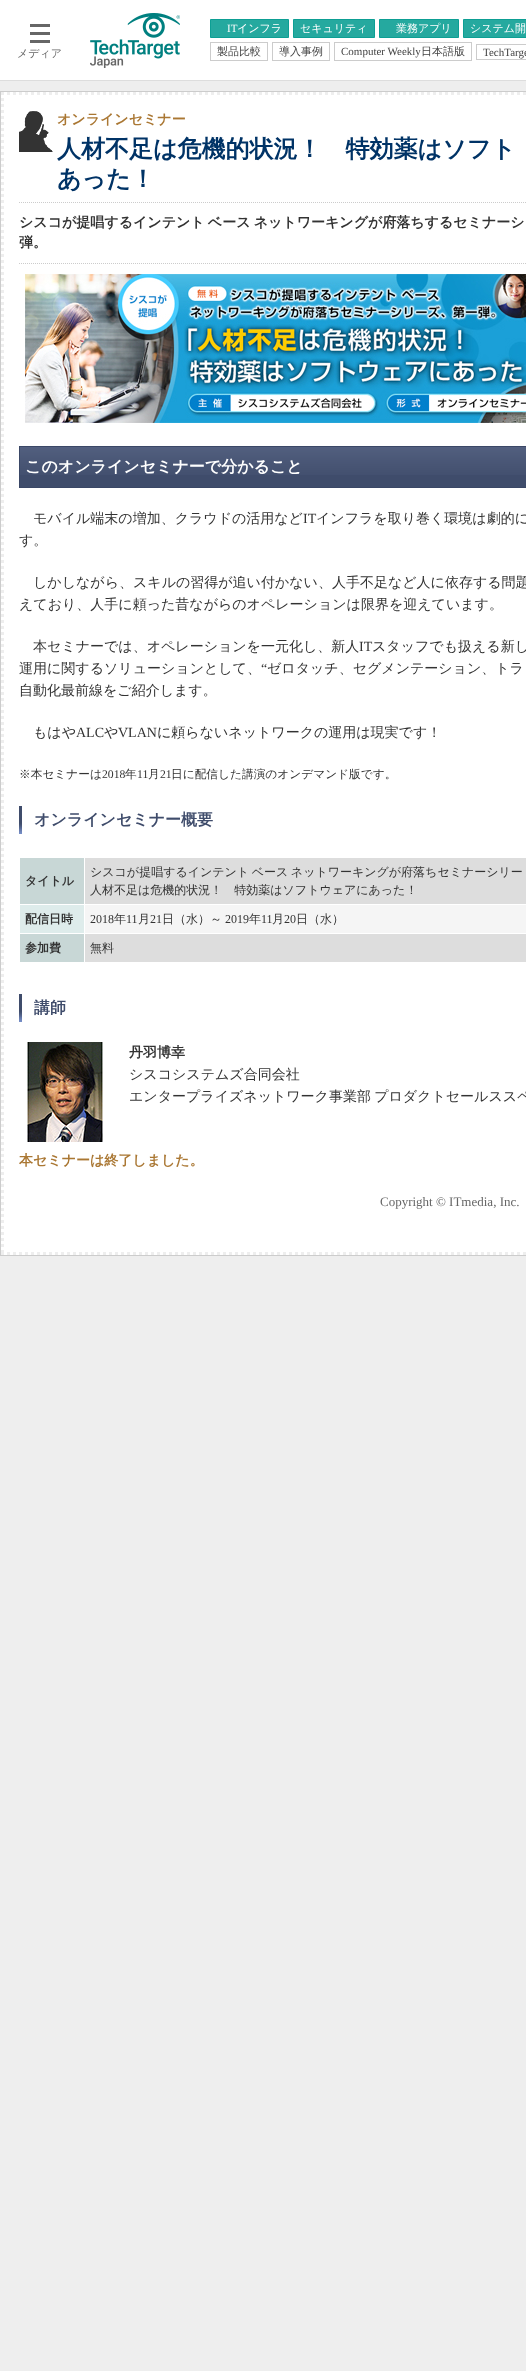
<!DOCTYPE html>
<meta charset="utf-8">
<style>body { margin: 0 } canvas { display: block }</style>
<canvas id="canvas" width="526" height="2371"></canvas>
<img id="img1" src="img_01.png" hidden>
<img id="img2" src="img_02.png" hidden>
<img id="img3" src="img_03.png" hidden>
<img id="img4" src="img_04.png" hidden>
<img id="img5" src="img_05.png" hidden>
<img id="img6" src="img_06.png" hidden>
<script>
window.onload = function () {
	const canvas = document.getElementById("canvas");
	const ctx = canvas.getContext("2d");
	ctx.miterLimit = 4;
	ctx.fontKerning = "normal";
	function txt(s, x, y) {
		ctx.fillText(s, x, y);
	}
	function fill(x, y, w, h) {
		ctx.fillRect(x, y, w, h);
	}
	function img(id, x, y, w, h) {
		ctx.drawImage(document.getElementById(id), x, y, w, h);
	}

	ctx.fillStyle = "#EEEEEE";
	fill(0, 0, 526, 2371);
	ctx.fillStyle = "#FFFFFF";
	fill(0, 0, 526, 80);
	ctx.fillStyle = "#DDDDDD";
	fill(0, 80, 526, 1);
	ctx.fillStyle = "#666666";
	fill(30, 24, 20, 3);
	fill(30, 32, 20, 3);
	fill(30, 40, 20, 3);
	img("img1", 90, 13, 90, 55);
	ctx.fillStyle = "#25A99F";
	ctx.beginPath();
	ctx.rect(210.5, 19.5, 78, 18);
	ctx.fill();
	ctx.strokeStyle = "#0D9F94";
	ctx.stroke();
	ctx.beginPath();
	ctx.rect(293.5, 19.5, 81, 18);
	ctx.fill();
	ctx.stroke();
	ctx.beginPath();
	ctx.rect(379.5, 19.5, 79, 18);
	ctx.fill();
	ctx.stroke();
	ctx.beginPath();
	ctx.rect(463.5, 19.5, 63, 18);
	ctx.fill();
	ctx.stroke();
	ctx.strokeStyle = "#CCCCCC";
	ctx.strokeRect(210.5, 42.5, 57, 18);
	ctx.strokeRect(272.5, 42.5, 57, 18);
	ctx.strokeRect(334.5, 42.5, 137, 18);
	ctx.strokeRect(476.5, 44.5, 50, 15);
	ctx.strokeRect(0.5, 91.5, 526, 1164);
	ctx.fillStyle = "#FFFFFF";
	fill(1, 92, 525, 1163);
	ctx.beginPath();
	ctx.moveTo(1, 93.5);
	ctx.lineTo(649, 93.5);
	ctx.strokeStyle = "#EEEEEE";
	ctx.lineWidth = 3;
	ctx.setLineDash([3, 3]);
	ctx.stroke();
	ctx.beginPath();
	ctx.moveTo(1, 1253.5);
	ctx.lineTo(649, 1253.5);
	ctx.stroke();
	ctx.beginPath();
	ctx.moveTo(2.5, 92);
	ctx.lineTo(2.5, 1255);
	ctx.stroke();
	img("img2", 19, 111, 34, 41);
	ctx.beginPath();
	ctx.moveTo(19, 202.5);
	ctx.lineTo(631, 202.5);
	ctx.strokeStyle = "#CCCCCC";
	ctx.lineWidth = 1;
	ctx.setLineDash([1, 1]);
	ctx.stroke();
	ctx.beginPath();
	ctx.moveTo(19, 263.5);
	ctx.lineTo(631, 263.5);
	ctx.stroke();
	img("img3", 25, 274, 501, 149);
	ctx.fillStyle = "#3F4C6B";
	fill(20, 475, 506, 12);
	img("img4", 20, 447, 506, 28);
	ctx.strokeStyle = "#3A4766";
	ctx.setLineDash([]);
	ctx.strokeRect(19.5, 446.5, 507, 41);
	img("img5", 19, 806, 3, 28);
	ctx.fillStyle = "#DDDDDD";
	fill(85, 858, 441, 46);
	ctx.fillStyle = "#C8D7D6";
	fill(20, 858, 64, 46);
	ctx.fillStyle = "#F5F5F5";
	fill(85, 905, 441, 28);
	ctx.fillStyle = "#DEECEB";
	fill(20, 905, 64, 28);
	ctx.fillStyle = "#DDDDDD";
	fill(85, 934, 441, 28);
	ctx.fillStyle = "#C8D7D6";
	fill(20, 934, 64, 28);
	img("img5", 19, 994, 3, 28);
	img("img6", 27, 1042, 76, 100);
	ctx.font = "500 11px WenQuanYi Zen Hei";
	ctx.fillStyle = "#666666";
	txt("メディア", 17, 57);
	ctx.font = "11px Liberation Serif";
	ctx.fillStyle = "#FFFFFF";
	txt("IT", 227, 32);
	ctx.font = "500 11px WenQuanYi Zen Hei";
	txt("インフラ", 237, 32);
	txt("セキュリティ", 300, 32);
	txt("業務アプリ", 396, 32);
	txt("システム開", 470, 32);
	ctx.fillStyle = "#444444";
	txt("製品比較", 217, 55);
	txt("導入事例", 279, 55);
	ctx.font = "11px Liberation Serif";
	txt("Computer Weekly", 341, 55);
	ctx.font = "500 11px WenQuanYi Zen Hei";
	txt("日本語版", 421, 55);
	ctx.font = "11px Liberation Serif";
	txt("TechTarge", 483, 56);
	ctx.font = "bold 14px WenQuanYi Zen Hei";
	ctx.fillStyle = "#AA7733";
	txt("オンラインセミナー", 57, 124);
	ctx.font = "bold 24px WenQuanYi Zen Hei";
	ctx.fillStyle = "#003366";
	txt("人材不足は危機的状況！　特効薬はソフト", 57, 157);
	txt("あった！", 57, 187);
	ctx.wordSpacing = "-1px";
	ctx.font = "bold 14px WenQuanYi Zen Hei";
	ctx.fillStyle = "#333333";
	txt("シスコが提唱するインテント ベース ネットワーキングが府落ちするセミナーシ", 19, 227);
	ctx.wordSpacing = "0px";
	txt("弾。", 19, 247);
	ctx.font = "bold 16px WenQuanYi Zen Hei";
	ctx.fillStyle = "#FFFFFF";
	txt("このオンラインセミナーで分かること", 25, 472);
	ctx.font = "500 14px WenQuanYi Zen Hei";
	ctx.fillStyle = "#333333";
	txt("モバイル端末の増加、クラウドの活用など", 33, 523);
	ctx.font = "14px Liberation Serif";
	txt("IT", 303, 523);
	ctx.font = "500 14px WenQuanYi Zen Hei";
	txt("インフラを取り巻く環境は劇的に", 316, 523);
	txt("す。", 19, 545);
	txt("しかしながら、スキルの習得が追い付かない、人手不足など人に依存する問題", 33, 587);
	txt("えており、人手に頼った昔ながらのオペレーションは限界を迎えています。", 19, 609);
	txt("本セミナーでは、オペレーションを一元化し、新人", 33, 651);
	ctx.font = "14px Liberation Serif";
	txt("IT", 359, 651);
	ctx.font = "500 14px WenQuanYi Zen Hei";
	txt("スタッフでも扱える新し", 372, 651);
	txt("運用に関するソリューションとして、", 19, 673);
	ctx.font = "14px Liberation Serif";
	txt("“", 261, 673);
	ctx.font = "500 14px WenQuanYi Zen Hei";
	txt("ゼロタッチ、セグメンテーション、トラ", 267, 673);
	txt("自動化最前線をご紹介します。", 19, 695);
	txt("もはや", 33, 737);
	ctx.font = "14px Liberation Serif";
	txt("ALC", 76, 737);
	ctx.font = "500 14px WenQuanYi Zen Hei";
	txt("や", 104, 737);
	ctx.font = "14px Liberation Serif";
	txt("VLAN", 118, 737);
	ctx.font = "500 14px WenQuanYi Zen Hei";
	txt("に頼らないネットワークの運用は現実です！", 157, 737);
	ctx.font = "500 11.7px WenQuanYi Zen Hei";
	txt("※本セミナーは", 19, 778);
	ctx.font = "11.7px Liberation Serif";
	txt("2018", 102, 778);
	ctx.font = "500 11.7px WenQuanYi Zen Hei";
	txt("年", 125, 778);
	ctx.font = "11.7px Liberation Serif";
	txt("11", 137, 778);
	ctx.font = "500 11.7px WenQuanYi Zen Hei";
	txt("月", 148, 778);
	ctx.font = "11.7px Liberation Serif";
	txt("21", 160, 778);
	ctx.font = "500 11.7px WenQuanYi Zen Hei";
	txt("日に配信した講演のオンデマンド版です。", 171, 778);
	ctx.font = "bold 16px WenQuanYi Zen Hei";
	ctx.fillStyle = "#3F4C6B";
	txt("オンラインセミナー概要", 34, 825);
	ctx.font = "bold 12px WenQuanYi Zen Hei";
	ctx.fillStyle = "#333333";
	txt("タイトル", 25, 885);
	ctx.wordSpacing = "-1px";
	ctx.font = "500 12px WenQuanYi Zen Hei";
	txt("シスコが提唱するインテント ベース ネットワーキングが府落ちセミナーシリー", 90, 876);
	ctx.wordSpacing = "0px";
	txt("人材不足は危機的状況！　特効薬はソフトウェアにあった！", 90, 894);
	ctx.font = "bold 12px WenQuanYi Zen Hei";
	txt("配信日時", 25, 923);
	ctx.font = "12px Liberation Serif";
	txt("2018", 90, 923);
	ctx.font = "500 12px WenQuanYi Zen Hei";
	txt("年", 114, 923);
	ctx.font = "12px Liberation Serif";
	txt("11", 126, 923);
	ctx.font = "500 12px WenQuanYi Zen Hei";
	txt("月", 138, 923);
	ctx.font = "12px Liberation Serif";
	txt("21", 150, 923);
	ctx.font = "500 12px WenQuanYi Zen Hei";
	txt("日（水）～", 162, 923);
	ctx.font = "12px Liberation Serif";
	txt("2019", 225, 923);
	ctx.font = "500 12px WenQuanYi Zen Hei";
	txt("年", 249, 923);
	ctx.font = "12px Liberation Serif";
	txt("11", 261, 923);
	ctx.font = "500 12px WenQuanYi Zen Hei";
	txt("月", 272, 923);
	ctx.font = "12px Liberation Serif";
	txt("20", 284, 923);
	ctx.font = "500 12px WenQuanYi Zen Hei";
	txt("日（水）", 296, 923);
	ctx.font = "bold 12px WenQuanYi Zen Hei";
	txt("参加費", 25, 952);
	ctx.font = "500 12px WenQuanYi Zen Hei";
	txt("無料", 90, 952);
	ctx.font = "bold 16px WenQuanYi Zen Hei";
	ctx.fillStyle = "#3F4C6B";
	txt("講師", 34, 1013);
	ctx.font = "bold 14px WenQuanYi Zen Hei";
	ctx.fillStyle = "#333333";
	txt("丹羽博幸", 129, 1057);
	ctx.font = "500 14px WenQuanYi Zen Hei";
	txt("シスコシステムズ合同会社", 129, 1079);
	ctx.wordSpacing = "-1px";
	txt("エンタープライズネットワーク事業部 プロダクトセールススペ", 129, 1101);
	ctx.wordSpacing = "0px";
	ctx.font = "bold 14px WenQuanYi Zen Hei";
	ctx.fillStyle = "#AA7733";
	txt("本セミナーは終了しました。", 19, 1165);
	ctx.font = "13px Liberation Serif";
	ctx.fillStyle = "#666666";
	txt("Copyright © ITmedia, Inc.", 380, 1206);
};
</script>
